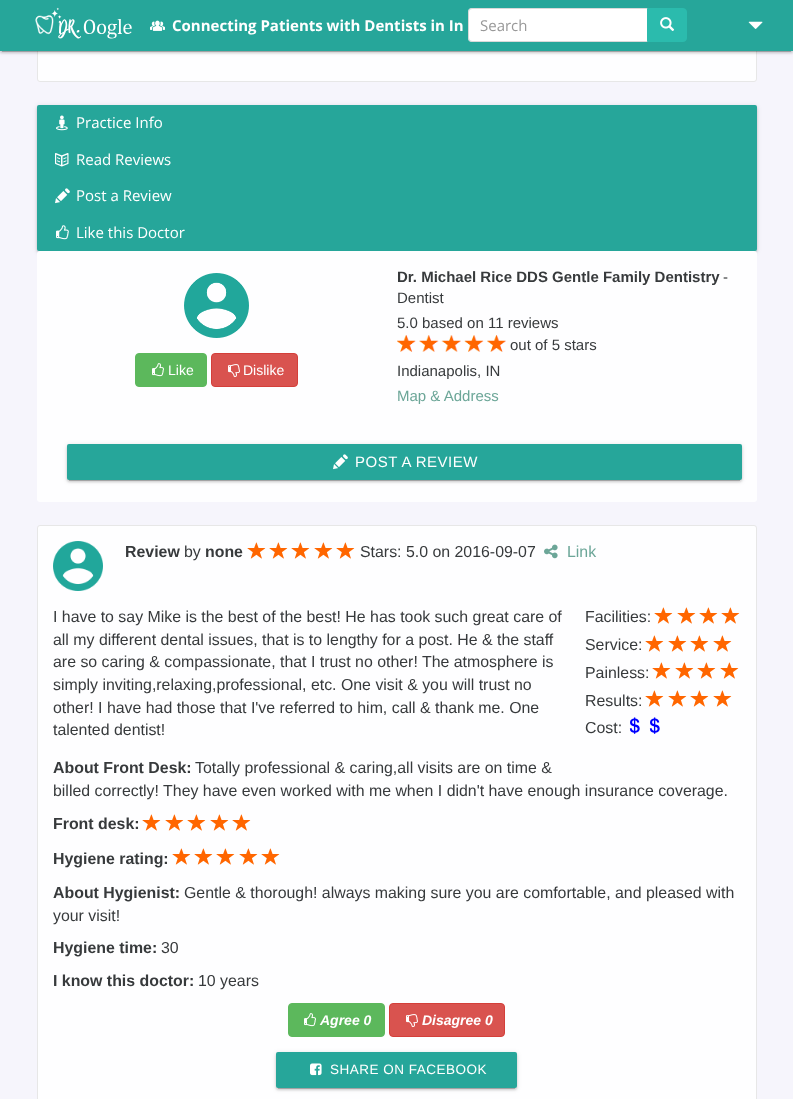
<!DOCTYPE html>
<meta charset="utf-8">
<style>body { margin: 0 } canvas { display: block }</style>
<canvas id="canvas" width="793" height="1099"></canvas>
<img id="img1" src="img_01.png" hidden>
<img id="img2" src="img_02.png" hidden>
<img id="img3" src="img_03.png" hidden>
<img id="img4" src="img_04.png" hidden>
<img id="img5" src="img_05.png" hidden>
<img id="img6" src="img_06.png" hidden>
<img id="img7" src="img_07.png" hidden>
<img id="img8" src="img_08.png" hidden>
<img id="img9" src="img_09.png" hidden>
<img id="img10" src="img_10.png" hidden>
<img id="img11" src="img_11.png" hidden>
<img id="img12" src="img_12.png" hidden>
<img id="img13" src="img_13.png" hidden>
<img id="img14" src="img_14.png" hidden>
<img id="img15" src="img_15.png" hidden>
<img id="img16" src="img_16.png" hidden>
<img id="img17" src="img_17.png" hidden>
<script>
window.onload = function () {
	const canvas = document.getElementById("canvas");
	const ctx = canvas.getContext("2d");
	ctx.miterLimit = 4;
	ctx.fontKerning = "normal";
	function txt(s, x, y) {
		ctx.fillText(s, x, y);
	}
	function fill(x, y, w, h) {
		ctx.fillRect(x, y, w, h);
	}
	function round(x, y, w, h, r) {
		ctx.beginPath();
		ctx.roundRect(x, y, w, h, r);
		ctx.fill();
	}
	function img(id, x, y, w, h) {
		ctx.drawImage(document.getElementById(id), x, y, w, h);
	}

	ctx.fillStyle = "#F6F5FC";
	fill(0, 0, 793, 1099);
	ctx.fillStyle = "#FEFEFF";
	ctx.beginPath();
	ctx.roundRect(37.5, -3.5, 719, 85, 2.5);
	ctx.fill();
	ctx.strokeStyle = "#E7E7E7";
	ctx.stroke();
	ctx.fillStyle = "rgba(0, 0, 0, 0.2)";
	ctx.filter = "blur(0.5px)";
	ctx.beginPath();
	ctx.rect(2, 5, 789, 47);
	ctx.fill();
	ctx.filter = "none";
	ctx.fillStyle = "rgba(0, 0, 0, 0.12)";
	ctx.filter = "blur(2.5px)";
	ctx.beginPath();
	ctx.rect(0, 1, 793, 51);
	ctx.fill();
	ctx.filter = "none";
	ctx.fillStyle = "rgba(0, 0, 0, 0.14)";
	ctx.filter = "blur(1px)";
	ctx.beginPath();
	ctx.rect(0, 2, 793, 51);
	ctx.fill();
	ctx.filter = "none";
	ctx.fillStyle = "#26A69A";
	fill(0, 0, 793, 51);
	img("img1", 35, 7, 97, 32);
	img("img2", 150, 20, 15, 11);
	ctx.fillStyle = "#FFFFFF";
	ctx.beginPath();
	ctx.roundRect(468, 8, 180, 34, [4, 0, 0, 4]);
	ctx.fill();
	ctx.beginPath();
	ctx.roundRect(468.5, 8.5, 179, 33, [3.5, 0, 0, 3.5]);
	ctx.strokeStyle = "rgba(0, 0, 0, 0.15)";
	ctx.stroke();
	ctx.fillStyle = "#2BBBAD";
	ctx.beginPath();
	ctx.roundRect(647.5, 8.5, 39, 33, [0, 3.5, 3.5, 0]);
	ctx.fill();
	ctx.strokeStyle = "#2BBBAD";
	ctx.stroke();
	img("img3", 660, 17, 15, 14);
	img("img4", 748, 21, 15, 8);
	ctx.fillStyle = "rgba(0, 0, 0, 0.12)";
	ctx.filter = "blur(2.5px)";
	ctx.beginPath();
	ctx.roundRect(37, 106, 720, 146, 2);
	ctx.fill();
	ctx.filter = "none";
	ctx.fillStyle = "rgba(0, 0, 0, 0.14)";
	ctx.filter = "blur(1px)";
	ctx.beginPath();
	ctx.roundRect(37, 107, 720, 146, 2);
	ctx.fill();
	ctx.filter = "none";
	ctx.fillStyle = "#26A69A";
	ctx.beginPath();
	ctx.roundRect(37, 105, 720, 36, [2, 2, 0, 0]);
	ctx.fill();
	img("img5", 56, 115, 12, 16);
	fill(37, 141, 720, 73);
	img("img6", 55, 153, 14, 14);
	img("img7", 55, 188, 15, 16);
	ctx.beginPath();
	ctx.roundRect(37, 214, 720, 37, [0, 0, 2, 2]);
	ctx.fill();
	img("img8", 56, 225, 13, 15);
	ctx.fillStyle = "#FEFEFF";
	round(37, 251, 720, 251, 3);
	img("img9", 184, 273, 65, 65);
	ctx.fillStyle = "#5CB85C";
	ctx.beginPath();
	ctx.roundRect(135.5, 353.5, 71, 33, 3.5);
	ctx.fill();
	ctx.strokeStyle = "#5CB85C";
	ctx.stroke();
	img("img10", 152, 363, 12, 14);
	ctx.fillStyle = "#D9534F";
	ctx.beginPath();
	ctx.roundRect(211.5, 353.5, 86, 33, 3.5);
	ctx.fill();
	ctx.strokeStyle = "#D43F3A";
	ctx.stroke();
	img("img11", 228, 364, 12, 14);
	img("img12", 397, 335, 109, 17);
	ctx.fillStyle = "rgba(0, 0, 0, 0.2)";
	ctx.filter = "blur(0.5px)";
	ctx.beginPath();
	ctx.rect(69, 449, 671, 32);
	ctx.fill();
	ctx.filter = "none";
	ctx.fillStyle = "rgba(0, 0, 0, 0.12)";
	ctx.filter = "blur(2.5px)";
	ctx.beginPath();
	ctx.roundRect(67, 445, 675, 36, 2);
	ctx.fill();
	ctx.filter = "none";
	ctx.fillStyle = "rgba(0, 0, 0, 0.14)";
	ctx.filter = "blur(1px)";
	ctx.beginPath();
	ctx.roundRect(67, 446, 675, 36, 2);
	ctx.fill();
	ctx.filter = "none";
	ctx.fillStyle = "#26A69A";
	round(67, 444, 675, 36, 2);
	img("img7", 333, 454, 15, 16);
	ctx.fillStyle = "#FEFEFF";
	ctx.beginPath();
	ctx.roundRect(37.5, 525.5, 719, 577, 2.5);
	ctx.fill();
	ctx.strokeStyle = "#E7E7E7";
	ctx.stroke();
	img("img13", 53, 541, 50, 50);
	img("img14", 247, 542, 19, 17);
	img("img14", 269, 542, 19, 17);
	img("img14", 291, 542, 19, 17);
	img("img14", 314, 542, 19, 17);
	img("img14", 336, 542, 19, 17);
	img("img15", 544, 544, 14, 15);
	img("img14", 142, 814, 19, 17);
	img("img14", 165, 814, 19, 17);
	img("img14", 187, 814, 19, 17);
	img("img14", 210, 814, 19, 17);
	img("img14", 232, 814, 19, 17);
	img("img14", 172, 848, 19, 17);
	img("img14", 194, 848, 19, 17);
	img("img14", 216, 848, 19, 17);
	img("img14", 239, 848, 19, 17);
	img("img14", 261, 848, 19, 17);
	img("img14", 654, 607, 19, 17);
	img("img14", 677, 607, 19, 17);
	img("img14", 699, 607, 19, 17);
	img("img14", 721, 607, 19, 17);
	img("img14", 645, 635, 19, 17);
	img("img14", 668, 635, 19, 17);
	img("img14", 690, 635, 19, 17);
	img("img14", 713, 635, 19, 17);
	img("img14", 652, 662, 19, 17);
	img("img14", 675, 662, 19, 17);
	img("img14", 697, 662, 19, 17);
	img("img14", 720, 662, 19, 17);
	img("img14", 645, 690, 19, 17);
	img("img14", 668, 690, 19, 17);
	img("img14", 690, 690, 19, 17);
	img("img14", 713, 690, 19, 17);
	img("img16", 629, 717, 11, 17);
	img("img16", 649, 717, 11, 17);
	ctx.fillStyle = "#5CB85C";
	ctx.beginPath();
	ctx.roundRect(288.5, 1003.5, 96, 33, 3.5);
	ctx.fill();
	ctx.strokeStyle = "#5CB85C";
	ctx.stroke();
	img("img10", 304, 1013, 12, 14);
	ctx.fillStyle = "#D9534F";
	ctx.beginPath();
	ctx.roundRect(389.5, 1003.5, 115, 33, 3.5);
	ctx.fill();
	ctx.strokeStyle = "#D43F3A";
	ctx.stroke();
	img("img11", 406, 1014, 12, 14);
	ctx.fillStyle = "rgba(0, 0, 0, 0.2)";
	ctx.filter = "blur(0.5px)";
	ctx.beginPath();
	ctx.rect(278, 1057, 237, 32);
	ctx.fill();
	ctx.filter = "none";
	ctx.fillStyle = "rgba(0, 0, 0, 0.12)";
	ctx.filter = "blur(2.5px)";
	ctx.beginPath();
	ctx.roundRect(276, 1053, 241, 36, 2);
	ctx.fill();
	ctx.filter = "none";
	ctx.fillStyle = "rgba(0, 0, 0, 0.14)";
	ctx.filter = "blur(1px)";
	ctx.beginPath();
	ctx.roundRect(276, 1054, 241, 36, 2);
	ctx.fill();
	ctx.filter = "none";
	ctx.fillStyle = "#26A69A";
	round(276, 1052, 241, 36, 2);
	img("img17", 310, 1063, 12, 13);
	ctx.font = "bold 15px Open Sans";
	ctx.fillStyle = "#FFFFFF";
	txt("Connecting Patients with Dentists in In", 172, 31);
	ctx.font = "15px Open Sans";
	ctx.fillStyle = "#999999";
	txt("Search", 480, 31);
	ctx.fillStyle = "#FFFFFF";
	txt("Practice Info", 76, 128);
	txt("Read Reviews", 76, 165);
	txt("Post a Review", 76, 201);
	txt("Like this Doctor", 76, 238);
	ctx.font = "14px Liberation Sans";
	txt("Like", 168, 375);
	txt("Dislike", 243, 375);
	ctx.font = "bold 15px Liberation Sans";
	ctx.fillStyle = "#373A3C";
	txt("Dr. Michael Rice DDS Gentle Family Dentistry", 397, 282);
	ctx.font = "15px Liberation Sans";
	txt("-", 723, 282);
	txt("Dentist", 397, 303);
	txt("5.0 based on 11 reviews", 397, 328);
	txt("out of 5 stars", 510, 350);
	txt("Indianapolis, IN", 397, 376);
	ctx.fillStyle = "#6CA698";
	txt("Map & Address", 397, 401);
	ctx.letterSpacing = "0.5px";
	ctx.fillStyle = "#FFFFFF";
	txt("POST A REVIEW", 355, 467);
	ctx.letterSpacing = "0px";
	ctx.font = "bold 15.9px Liberation Sans";
	ctx.fillStyle = "#373A3C";
	txt("Review", 125, 557);
	ctx.font = "15.9px Liberation Sans";
	txt("by", 184, 557);
	ctx.font = "bold 15.9px Liberation Sans";
	txt("none", 205, 557);
	ctx.font = "15.9px Liberation Sans";
	txt("Stars: 5.0 on 2016-09-07", 360, 557);
	ctx.fillStyle = "#6CA698";
	txt("Link", 567, 557);
	ctx.fillStyle = "#373A3C";
	txt("I have to say Mike is the best of the best! He has took such great care of", 53, 622);
	txt("all my different dental issues, that is to lengthy for a post. He & the staff", 53, 645);
	txt("are so caring & compassionate, that I trust no other! The atmosphere is", 53, 667);
	txt("simply inviting,relaxing,professional, etc. One visit & you will trust no", 53, 690);
	txt("other! I have had those that I've referred to him, call & thank me. One", 53, 713);
	txt("talented dentist!", 53, 735);
	ctx.font = "bold 15.9px Liberation Sans";
	txt("About Front Desk:", 53, 773);
	ctx.font = "15.9px Liberation Sans";
	txt("Totally professional & caring,all visits are on time &", 195, 773);
	txt("billed correctly! They have even worked with me when I didn't have enough insurance coverage.", 53, 796);
	ctx.font = "bold 15.9px Liberation Sans";
	txt("Front desk:", 53, 829);
	txt("Hygiene rating:", 53, 864);
	txt("About Hygienist:", 53, 898);
	ctx.font = "15.9px Liberation Sans";
	txt("Gentle & thorough! always making sure you are comfortable, and pleased with", 184, 898);
	txt("your visit!", 53, 921);
	ctx.font = "bold 15.9px Liberation Sans";
	txt("Hygiene time:", 53, 953);
	ctx.font = "15.9px Liberation Sans";
	txt("30", 161, 953);
	ctx.font = "bold 15.9px Liberation Sans";
	txt("I know this doctor:", 53, 986);
	ctx.font = "15.9px Liberation Sans";
	txt("10 years", 198, 986);
	txt("Facilities:", 585, 622);
	txt("Service:", 585, 650);
	txt("Painless:", 585, 678);
	txt("Results:", 585, 706);
	txt("Cost:", 585, 733);
	ctx.font = "italic bold 14px Liberation Sans";
	ctx.fillStyle = "#FFFFFF";
	txt("Agree 0", 320, 1025);
	txt("Disagree 0", 422, 1025);
	ctx.letterSpacing = "0.5px";
	ctx.font = "13.5px Liberation Sans";
	txt("SHARE ON FACEBOOK", 330, 1074);
};
</script>
